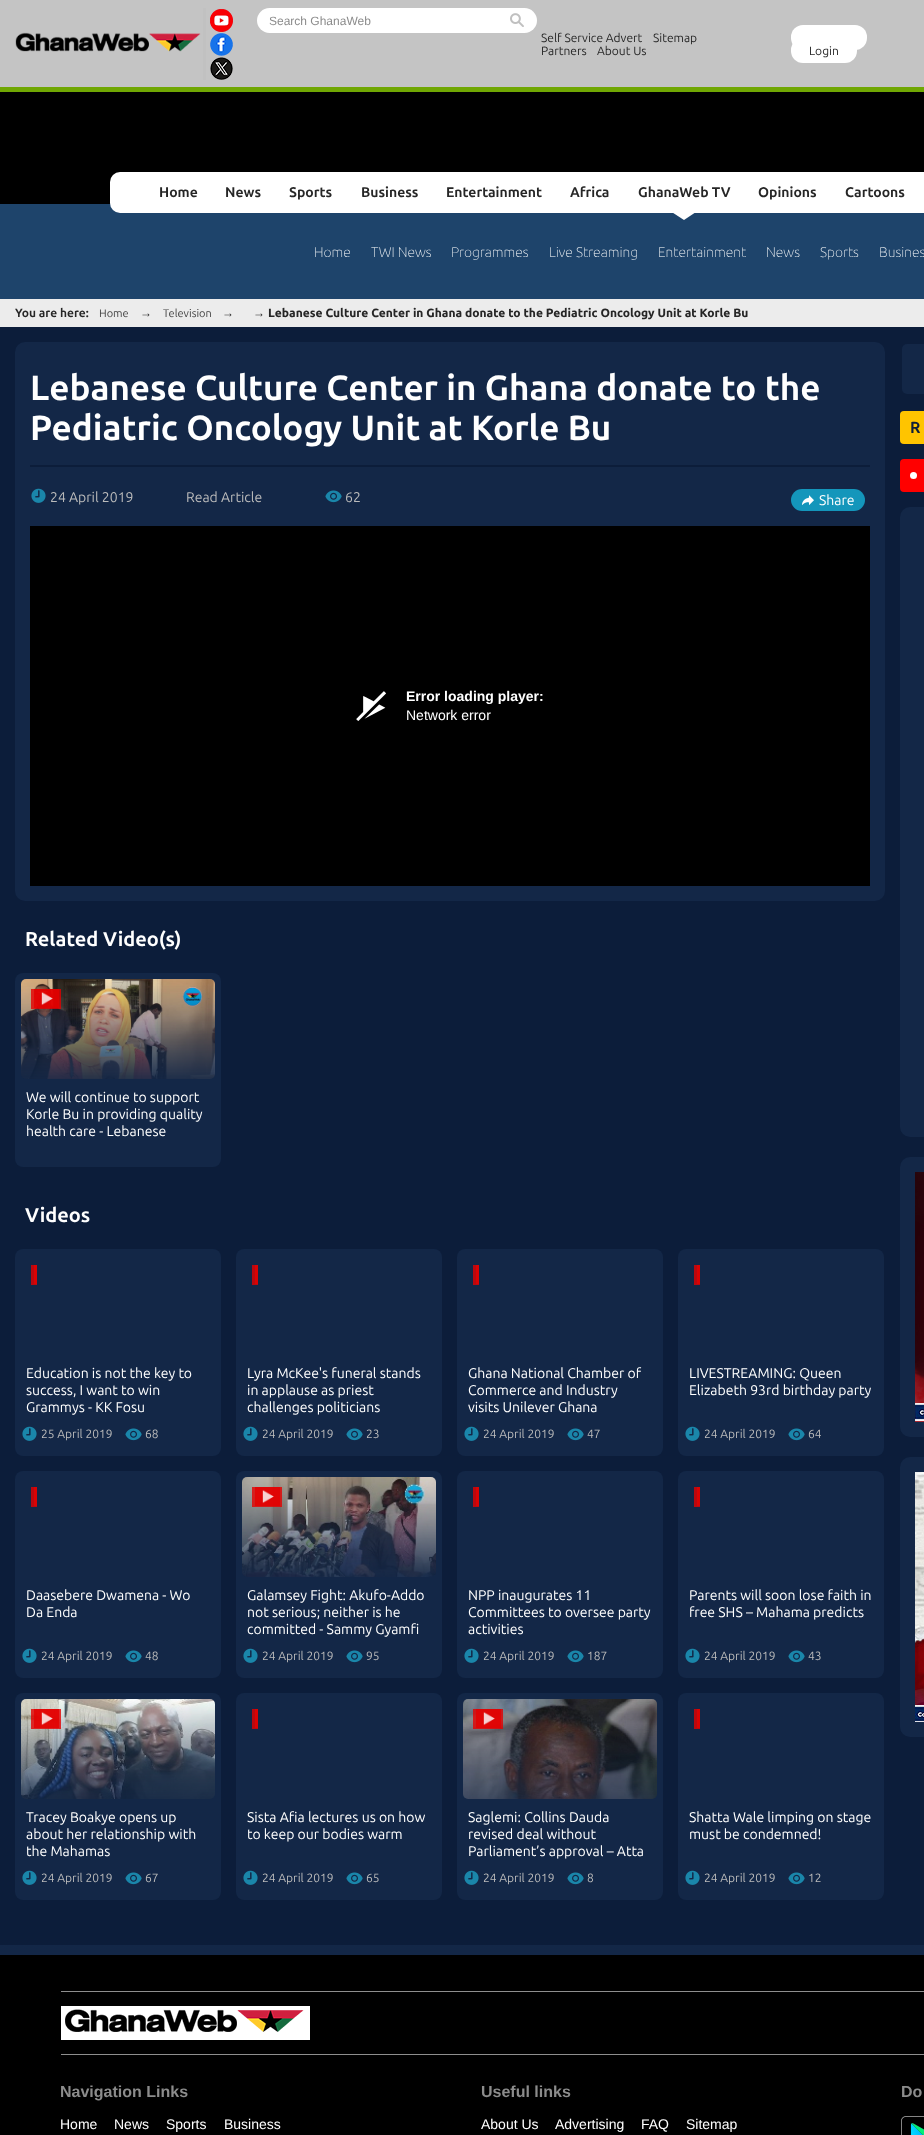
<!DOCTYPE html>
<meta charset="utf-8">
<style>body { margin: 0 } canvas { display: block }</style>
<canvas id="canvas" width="924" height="2135"></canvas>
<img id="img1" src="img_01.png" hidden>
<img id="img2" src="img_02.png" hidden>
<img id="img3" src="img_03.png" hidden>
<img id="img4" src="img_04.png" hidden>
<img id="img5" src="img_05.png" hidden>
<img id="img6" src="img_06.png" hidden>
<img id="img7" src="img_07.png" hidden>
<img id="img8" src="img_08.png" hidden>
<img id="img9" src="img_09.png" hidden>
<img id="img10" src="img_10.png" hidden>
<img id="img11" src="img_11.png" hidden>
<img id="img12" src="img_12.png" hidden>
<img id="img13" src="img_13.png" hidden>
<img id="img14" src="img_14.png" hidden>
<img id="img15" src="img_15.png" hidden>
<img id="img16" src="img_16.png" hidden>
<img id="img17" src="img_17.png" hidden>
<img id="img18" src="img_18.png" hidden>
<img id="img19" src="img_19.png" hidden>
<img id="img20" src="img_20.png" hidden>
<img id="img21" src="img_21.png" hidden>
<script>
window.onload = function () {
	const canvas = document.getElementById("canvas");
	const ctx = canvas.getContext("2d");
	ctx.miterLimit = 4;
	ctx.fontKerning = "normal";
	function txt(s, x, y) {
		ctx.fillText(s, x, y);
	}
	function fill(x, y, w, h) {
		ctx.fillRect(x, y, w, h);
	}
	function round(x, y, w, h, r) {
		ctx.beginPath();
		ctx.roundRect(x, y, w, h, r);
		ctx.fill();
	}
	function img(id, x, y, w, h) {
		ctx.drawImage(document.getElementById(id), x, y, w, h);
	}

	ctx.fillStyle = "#0C1D3A";
	fill(0, 0, 924, 2135);
	ctx.fillStyle = "#C4C4C4";
	fill(0, 0, 924, 87);
	ctx.fillStyle = "#70A703";
	fill(0, 87, 924, 5);
	ctx.fillStyle = "#C1C1C1";
	fill(203, 8, 3, 72);
	img("img1", 210, 9, 23, 23);
	img("img2", 210, 33, 23, 23);
	img("img3", 210, 57, 23, 23);
	ctx.fillStyle = "#FFFFFF";
	round(257, 8, 280, 25, 12.5);
	img("img4", 510, 13, 14, 14);
	img("img5", 15, 32, 186, 20);
	round(791, 25, 76, 25, 12);
	round(791, 38, 66, 25, 12);
	ctx.fillStyle = "#000000";
	fill(0, 92, 924, 112);
	ctx.fillStyle = "#1E446B";
	fill(0, 204, 924, 95);
	ctx.fillStyle = "#FFFFFF";
	round(110, 172, 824, 41, 10);
	ctx.beginPath();
	ctx.moveTo(665.5, 208);
	ctx.lineTo(702, 208);
	ctx.lineTo(684, 220);
	ctx.closePath();
	ctx.fill();
	ctx.fillStyle = "#ECECEC";
	fill(0, 299, 924, 28);
	ctx.fillStyle = "#132747";
	round(15, 342, 870, 559, 10);
	ctx.fillStyle = "#0C1D3A";
	fill(30, 465, 840, 2);
	img("img6", 31, 488, 15, 15);
	img("img7", 325, 490, 17, 13);
	ctx.fillStyle = "#1496BB";
	round(791, 489, 74, 22, 11);
	img("img8", 802, 495, 12, 10);
	ctx.fillStyle = "#000000";
	fill(30, 526, 840, 360);
	img("img9", 356, 691, 30, 30);
	ctx.fillStyle = "#132747";
	round(15, 973, 206, 194, 8);
	img("img10", 21, 979, 194, 100);
	ctx.fillStyle = "rgba(228, 0, 0, 0.8)";
	fill(31, 989, 30, 20);
	img("img11", 34, 989, 25, 19);
	ctx.fillStyle = "#132747";
	round(15, 1249, 206, 207, 8);
	ctx.fillStyle = "#BA080E";
	fill(31, 1265, 6, 20);
	ctx.fillStyle = "#DB0203";
	fill(34, 1265, 3, 19);
	img("img6", 22, 1426, 15, 15);
	img("img7", 125, 1428, 17, 13);
	ctx.fillStyle = "#132747";
	round(236, 1249, 206, 207, 8);
	ctx.fillStyle = "#BA080E";
	fill(252, 1265, 6, 20);
	ctx.fillStyle = "#DB0203";
	fill(255, 1265, 3, 19);
	img("img6", 243, 1426, 15, 15);
	img("img7", 346, 1428, 17, 13);
	ctx.fillStyle = "#132747";
	round(457, 1249, 206, 207, 8);
	ctx.fillStyle = "#BA080E";
	fill(473, 1265, 6, 20);
	ctx.fillStyle = "#DB0203";
	fill(476, 1265, 3, 19);
	img("img6", 464, 1426, 15, 15);
	img("img7", 567, 1428, 17, 13);
	ctx.fillStyle = "#132747";
	round(678, 1249, 206, 207, 8);
	ctx.fillStyle = "#BA080E";
	fill(694, 1265, 6, 20);
	ctx.fillStyle = "#DB0203";
	fill(697, 1265, 3, 19);
	img("img6", 685, 1426, 15, 15);
	img("img7", 788, 1428, 17, 13);
	ctx.fillStyle = "#132747";
	round(15, 1471, 206, 207, 8);
	ctx.fillStyle = "#BA080E";
	fill(31, 1487, 6, 20);
	ctx.fillStyle = "#DB0203";
	fill(34, 1487, 3, 19);
	img("img6", 22, 1648, 15, 15);
	img("img7", 125, 1650, 17, 13);
	ctx.fillStyle = "#132747";
	round(236, 1471, 206, 207, 8);
	img("img12", 242, 1477, 194, 100);
	ctx.fillStyle = "rgba(228, 0, 0, 0.8)";
	fill(252, 1487, 30, 20);
	img("img13", 255, 1487, 25, 19);
	img("img6", 243, 1648, 15, 15);
	img("img7", 346, 1650, 17, 13);
	ctx.fillStyle = "#132747";
	round(457, 1471, 206, 207, 8);
	ctx.fillStyle = "#BA080E";
	fill(473, 1487, 6, 20);
	ctx.fillStyle = "#DB0203";
	fill(476, 1487, 3, 19);
	img("img6", 464, 1648, 15, 15);
	img("img7", 567, 1650, 17, 13);
	ctx.fillStyle = "#132747";
	round(678, 1471, 206, 207, 8);
	ctx.fillStyle = "#BA080E";
	fill(694, 1487, 6, 20);
	ctx.fillStyle = "#DB0203";
	fill(697, 1487, 3, 19);
	img("img6", 685, 1648, 15, 15);
	img("img7", 788, 1650, 17, 13);
	ctx.fillStyle = "#132747";
	round(15, 1693, 206, 207, 8);
	img("img14", 21, 1699, 194, 100);
	ctx.fillStyle = "rgba(228, 0, 0, 0.8)";
	fill(31, 1709, 30, 20);
	img("img15", 34, 1709, 25, 19);
	img("img6", 22, 1870, 15, 15);
	img("img7", 125, 1872, 17, 13);
	ctx.fillStyle = "#132747";
	round(236, 1693, 206, 207, 8);
	ctx.fillStyle = "#BA080E";
	fill(252, 1709, 6, 20);
	ctx.fillStyle = "#DB0203";
	fill(255, 1709, 3, 19);
	img("img6", 243, 1870, 15, 15);
	img("img7", 346, 1872, 17, 13);
	ctx.fillStyle = "#132747";
	round(457, 1693, 206, 207, 8);
	img("img16", 463, 1699, 194, 100);
	ctx.fillStyle = "rgba(228, 0, 0, 0.8)";
	fill(473, 1709, 30, 20);
	img("img17", 476, 1709, 25, 19);
	img("img6", 464, 1870, 15, 15);
	img("img7", 567, 1872, 17, 13);
	ctx.fillStyle = "#132747";
	round(678, 1693, 206, 207, 8);
	ctx.fillStyle = "#BA080E";
	fill(694, 1709, 6, 20);
	ctx.fillStyle = "#DB0203";
	fill(697, 1709, 3, 19);
	img("img6", 685, 1870, 15, 15);
	img("img7", 788, 1872, 17, 13);
	ctx.fillStyle = "#132747";
	round(902, 344, 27, 50, 5);
	ctx.fillStyle = "#FFC400";
	round(900, 411, 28, 33, 4);
	ctx.fillStyle = "#FF0000";
	round(900, 459, 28, 33, 4);
	ctx.fillStyle = "#FFFFFF";
	ctx.beginPath();
	ctx.arc(913.5, 475.5, 3.5, 0, Math.PI * 2);
	ctx.fill();
	ctx.fillStyle = "#132747";
	round(900, 507, 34, 630, 10);
	round(900, 1157, 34, 280, 10);
	img("img18", 915, 1172, 9, 250);
	round(900, 1457, 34, 280, 10);
	img("img19", 915, 1472, 9, 250);
	fill(0, 1945, 924, 10);
	ctx.fillStyle = "#000000";
	fill(0, 1955, 924, 180);
	ctx.fillStyle = "#8E8E8E";
	fill(61, 1991, 863, 1);
	fill(61, 2054, 863, 1);
	ctx.fillStyle = "#FFFFFF";
	fill(61, 2006, 249, 34);
	img("img20", 65, 2009, 239, 23);
	img("img21", 901, 2116, 23, 19);
	ctx.font = "12px Liberation Sans";
	ctx.fillStyle = "#8C8C8C";
	txt("Search GhanaWeb", 269, 25);
	ctx.font = "12px Ubuntu";
	ctx.fillStyle = "#262626";
	txt("Self Service Advert", 541, 42);
	txt("Sitemap", 653, 42);
	txt("Partners", 541, 55);
	txt("About Us", 597, 55);
	txt("Login", 809, 55);
	ctx.font = "bold 14px Ubuntu";
	txt("Home", 159, 197);
	txt("News", 225, 197);
	txt("Sports", 289, 197);
	txt("Business", 361, 197);
	txt("Entertainment", 446, 197);
	txt("Africa", 570, 197);
	txt("GhanaWeb TV", 638, 197);
	txt("Opinions", 758, 197);
	txt("Cartoons", 845, 197);
	ctx.font = "100 14px Ubuntu";
	ctx.fillStyle = "#FFFFFF";
	txt("Home", 314, 257);
	txt("TWI News", 371, 257);
	txt("Programmes", 451, 257);
	txt("Live Streaming", 549, 257);
	txt("Entertainment", 658, 257);
	txt("News", 766, 257);
	txt("Sports", 820, 257);
	txt("Busines", 879, 257);
	ctx.font = "bold 12px Ubuntu";
	ctx.fillStyle = "#262626";
	txt("You are here:", 15, 317);
	ctx.font = "11px Ubuntu";
	ctx.fillStyle = "#414141";
	txt("Home", 99, 317);
	ctx.font = "bold 12px Liberation Sans";
	ctx.fillStyle = "#262626";
	txt("→", 140, 317);
	ctx.font = "11px Ubuntu";
	ctx.fillStyle = "#414141";
	txt("Television", 163, 317);
	ctx.font = "bold 12px Liberation Sans";
	ctx.fillStyle = "#262626";
	txt("→", 222, 317);
	txt("→", 253, 317);
	ctx.font = "800 12px Ubuntu";
	txt("Lebanese Culture Center in Ghana donate to the Pediatric Oncology Unit at Korle Bu", 268, 317);
	ctx.font = "bold 35px Ubuntu";
	ctx.fillStyle = "#FFFFFF";
	txt("Lebanese Culture Center in Ghana donate to the", 30, 400);
	txt("Pediatric Oncology Unit at Korle Bu", 30, 440);
	ctx.font = "14px Ubuntu";
	ctx.fillStyle = "#BBBBBB";
	txt("24 April 2019", 50, 502);
	txt("Read Article", 186, 502);
	txt("62", 345, 502);
	ctx.fillStyle = "#FFFFFF";
	txt("Share", 819, 505);
	ctx.font = "bold 14px Liberation Sans";
	txt("Error loading player:", 406, 701);
	ctx.font = "14px Liberation Sans";
	txt("Network error", 406, 720);
	ctx.font = "bold 20px Ubuntu";
	txt("Related Video(s)", 25, 946);
	ctx.font = "14px Ubuntu";
	txt("We will continue to support", 26, 1102);
	txt("Korle Bu in providing quality", 26, 1119);
	txt("health care - Lebanese", 26, 1136);
	ctx.font = "bold 20px Ubuntu";
	txt("Videos", 25, 1222);
	ctx.font = "14px Ubuntu";
	txt("Education is not the key to", 26, 1378);
	txt("success, I want to win", 26, 1395);
	txt("Grammys - KK Fosu", 26, 1412);
	ctx.font = "12px Ubuntu";
	ctx.fillStyle = "#BBBBBB";
	txt("25 April 2019", 41, 1438);
	txt("68", 145, 1438);
	ctx.font = "14px Ubuntu";
	ctx.fillStyle = "#FFFFFF";
	txt("Lyra McKee's funeral stands", 247, 1378);
	txt("in applause as priest", 247, 1395);
	txt("challenges politicians", 247, 1412);
	ctx.font = "12px Ubuntu";
	ctx.fillStyle = "#BBBBBB";
	txt("24 April 2019", 262, 1438);
	txt("23", 366, 1438);
	ctx.font = "14px Ubuntu";
	ctx.fillStyle = "#FFFFFF";
	txt("Ghana National Chamber of", 468, 1378);
	txt("Commerce and Industry", 468, 1395);
	txt("visits Unilever Ghana", 468, 1412);
	ctx.font = "12px Ubuntu";
	ctx.fillStyle = "#BBBBBB";
	txt("24 April 2019", 483, 1438);
	txt("47", 587, 1438);
	ctx.font = "14px Ubuntu";
	ctx.fillStyle = "#FFFFFF";
	txt("LIVESTREAMING: Queen", 689, 1378);
	txt("Elizabeth 93rd birthday party", 689, 1395);
	ctx.font = "12px Ubuntu";
	ctx.fillStyle = "#BBBBBB";
	txt("24 April 2019", 704, 1438);
	txt("64", 808, 1438);
	ctx.font = "14px Ubuntu";
	ctx.fillStyle = "#FFFFFF";
	txt("Daasebere Dwamena - Wo", 26, 1600);
	txt("Da Enda", 26, 1617);
	ctx.font = "12px Ubuntu";
	ctx.fillStyle = "#BBBBBB";
	txt("24 April 2019", 41, 1660);
	txt("48", 145, 1660);
	ctx.font = "14px Ubuntu";
	ctx.fillStyle = "#FFFFFF";
	txt("Galamsey Fight: Akufo-Addo", 247, 1600);
	txt("not serious; neither is he", 247, 1617);
	txt("committed - Sammy Gyamfi", 247, 1634);
	ctx.font = "12px Ubuntu";
	ctx.fillStyle = "#BBBBBB";
	txt("24 April 2019", 262, 1660);
	txt("95", 366, 1660);
	ctx.font = "14px Ubuntu";
	ctx.fillStyle = "#FFFFFF";
	txt("NPP inaugurates 11", 468, 1600);
	txt("Committees to oversee party", 468, 1617);
	txt("activities", 468, 1634);
	ctx.font = "12px Ubuntu";
	ctx.fillStyle = "#BBBBBB";
	txt("24 April 2019", 483, 1660);
	txt("187", 587, 1660);
	ctx.font = "14px Ubuntu";
	ctx.fillStyle = "#FFFFFF";
	txt("Parents will soon lose faith in", 689, 1600);
	txt("free SHS – Mahama predicts", 689, 1617);
	ctx.font = "12px Ubuntu";
	ctx.fillStyle = "#BBBBBB";
	txt("24 April 2019", 704, 1660);
	txt("43", 808, 1660);
	ctx.font = "14px Ubuntu";
	ctx.fillStyle = "#FFFFFF";
	txt("Tracey Boakye opens up", 26, 1822);
	txt("about her relationship with", 26, 1839);
	txt("the Mahamas", 26, 1856);
	ctx.font = "12px Ubuntu";
	ctx.fillStyle = "#BBBBBB";
	txt("24 April 2019", 41, 1882);
	txt("67", 145, 1882);
	ctx.font = "14px Ubuntu";
	ctx.fillStyle = "#FFFFFF";
	txt("Sista Afia lectures us on how", 247, 1822);
	txt("to keep our bodies warm", 247, 1839);
	ctx.font = "12px Ubuntu";
	ctx.fillStyle = "#BBBBBB";
	txt("24 April 2019", 262, 1882);
	txt("65", 366, 1882);
	ctx.font = "14px Ubuntu";
	ctx.fillStyle = "#FFFFFF";
	txt("Saglemi: Collins Dauda", 468, 1822);
	txt("revised deal without", 468, 1839);
	txt("Parliament’s approval – Atta", 468, 1856);
	ctx.font = "12px Ubuntu";
	ctx.fillStyle = "#BBBBBB";
	txt("24 April 2019", 483, 1882);
	txt("8", 587, 1882);
	ctx.font = "14px Ubuntu";
	ctx.fillStyle = "#FFFFFF";
	txt("Shatta Wale limping on stage", 689, 1822);
	txt("must be condemned!", 689, 1839);
	ctx.font = "12px Ubuntu";
	ctx.fillStyle = "#BBBBBB";
	txt("24 April 2019", 704, 1882);
	txt("12", 808, 1882);
	ctx.font = "bold 16px Ubuntu";
	ctx.fillStyle = "#0C1D3A";
	txt("R", 910, 433);
	ctx.font = "bold 16px Liberation Sans";
	ctx.fillStyle = "#8C8C8C";
	txt("Navigation Links", 60, 2097);
	ctx.font = "14px Liberation Sans";
	ctx.fillStyle = "#FFFFFF";
	txt("Home", 60, 2129);
	txt("News", 114, 2129);
	txt("Sports", 166, 2129);
	txt("Business", 224, 2129);
	ctx.font = "bold 16px Liberation Sans";
	ctx.fillStyle = "#8C8C8C";
	txt("Useful links", 481, 2097);
	ctx.font = "14px Liberation Sans";
	ctx.fillStyle = "#FFFFFF";
	txt("About Us", 481, 2129);
	txt("Advertising", 555, 2129);
	txt("FAQ", 641, 2129);
	txt("Sitemap", 686, 2129);
	ctx.font = "bold 16px Liberation Sans";
	ctx.fillStyle = "#8C8C8C";
	txt("Do", 901, 2097);
};
</script>
